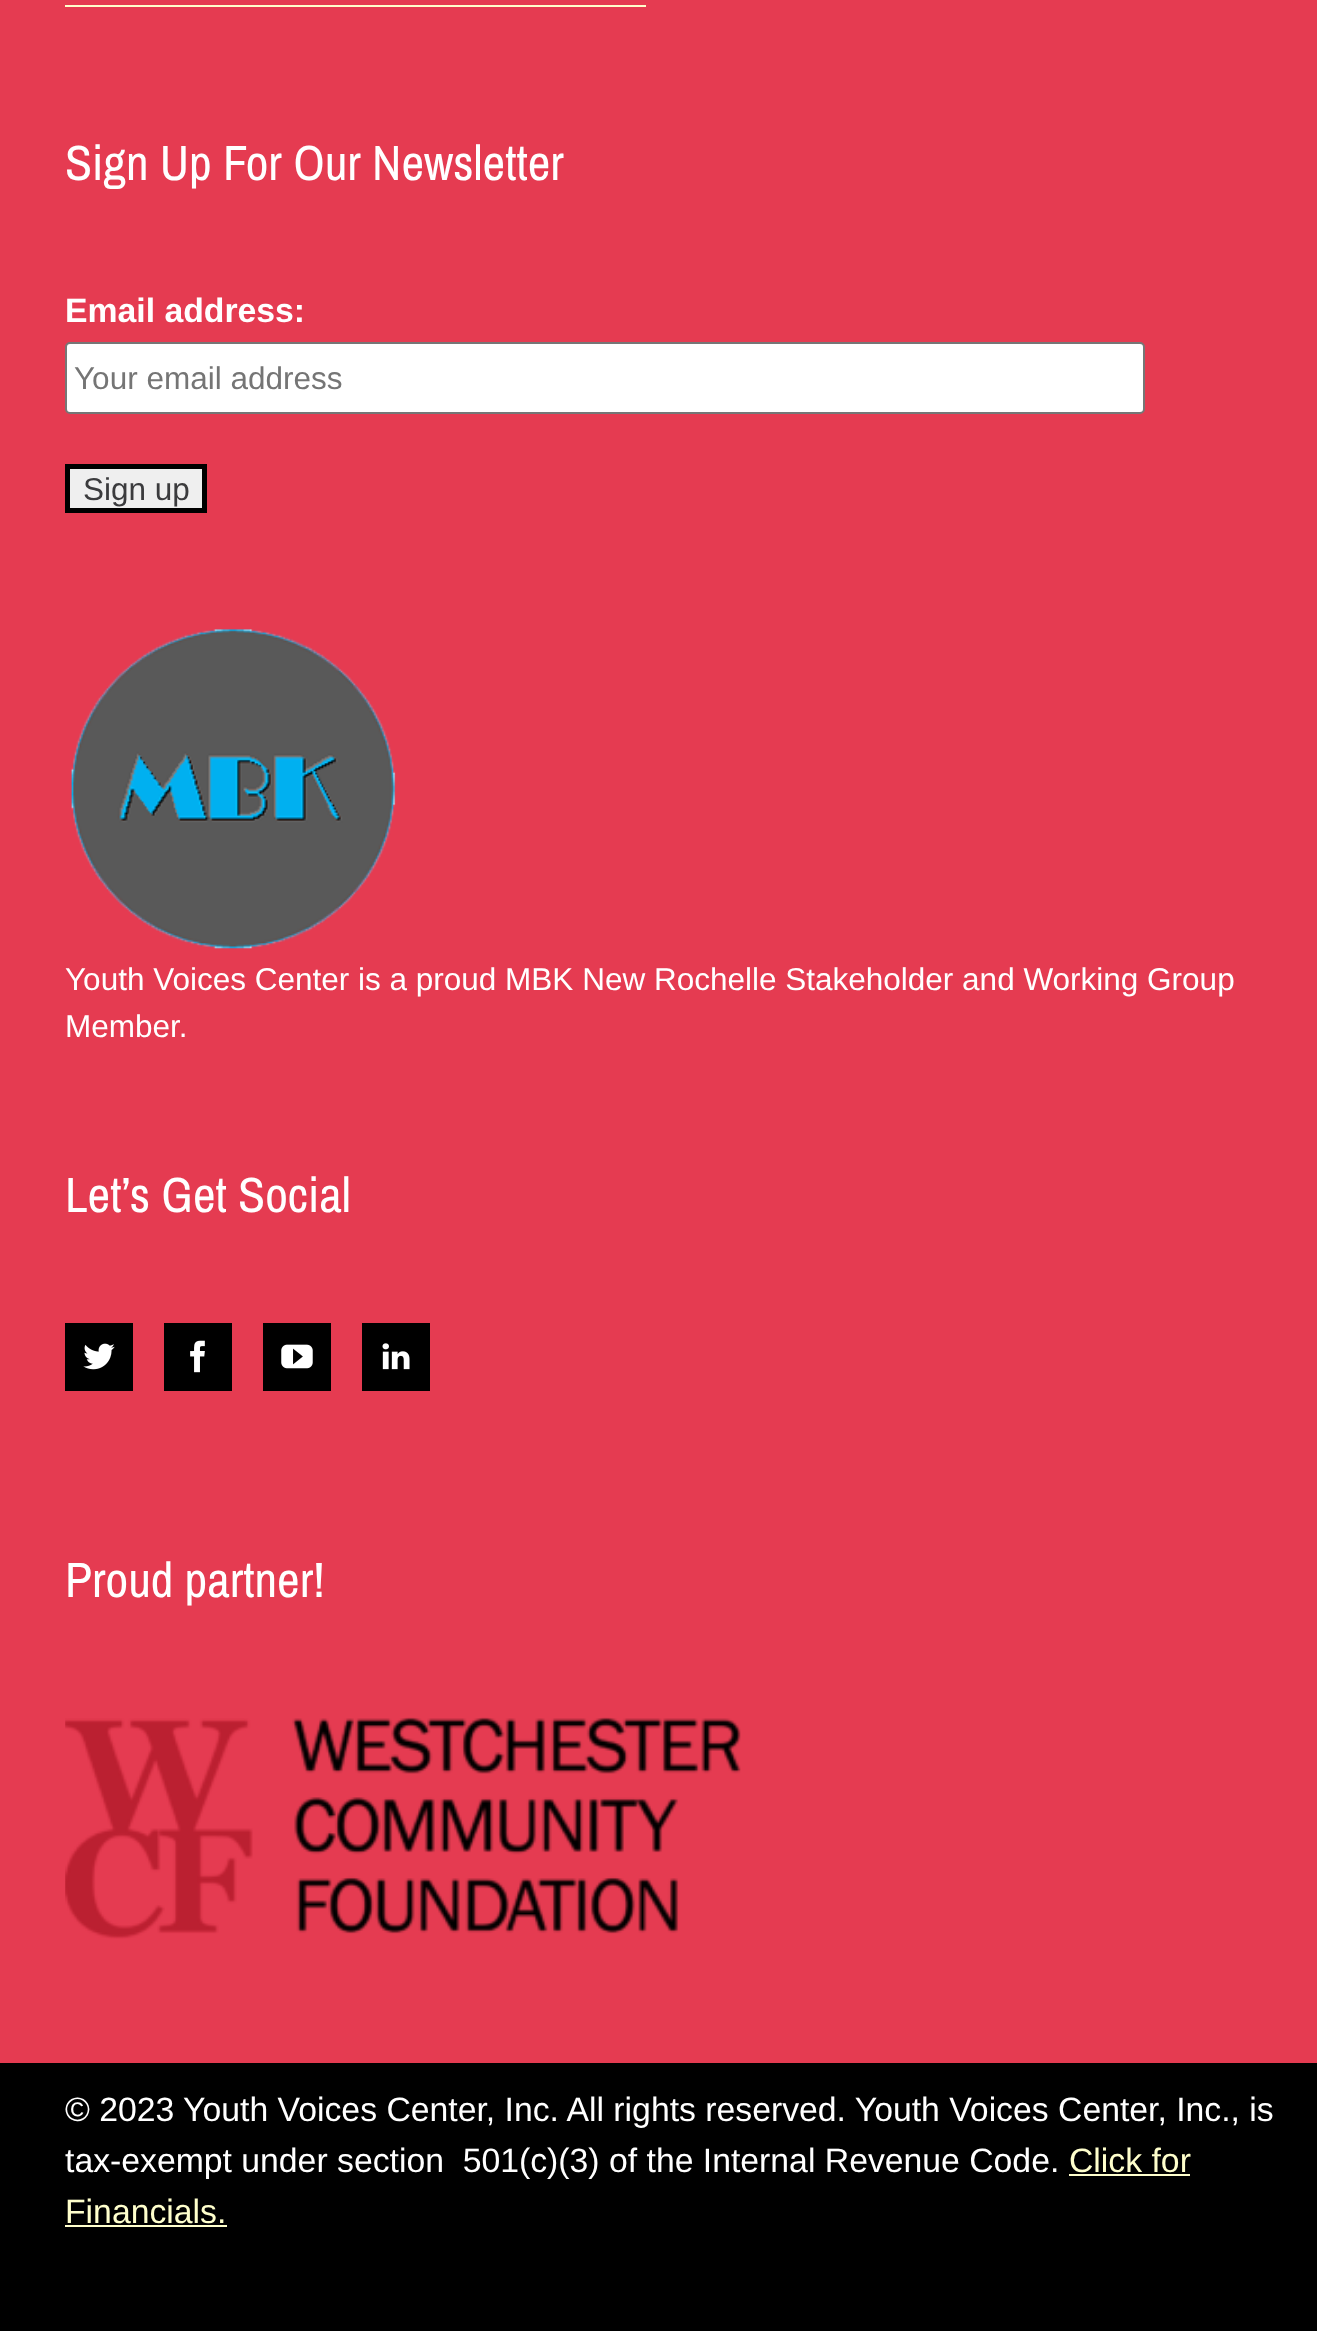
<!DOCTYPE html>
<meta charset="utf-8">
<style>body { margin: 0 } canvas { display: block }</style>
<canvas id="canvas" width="1317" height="2331"></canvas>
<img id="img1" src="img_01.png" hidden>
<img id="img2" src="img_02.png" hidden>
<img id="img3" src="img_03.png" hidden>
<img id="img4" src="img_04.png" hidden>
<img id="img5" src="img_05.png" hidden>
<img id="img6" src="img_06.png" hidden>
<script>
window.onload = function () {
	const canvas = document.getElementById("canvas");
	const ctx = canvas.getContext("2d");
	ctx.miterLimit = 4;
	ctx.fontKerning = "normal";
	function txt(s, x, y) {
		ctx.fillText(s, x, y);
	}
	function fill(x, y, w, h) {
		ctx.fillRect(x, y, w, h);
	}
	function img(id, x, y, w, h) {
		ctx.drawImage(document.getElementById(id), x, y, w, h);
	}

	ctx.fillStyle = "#E53B51";
	fill(0, 0, 1317, 2331);
	ctx.fillStyle = "#FFFFCC";
	fill(65, 5, 581, 2);
	ctx.fillStyle = "#FFFFFF";
	ctx.beginPath();
	ctx.roundRect(66, 343, 1078, 70, 4);
	ctx.fill();
	ctx.strokeStyle = "#767676";
	ctx.lineWidth = 2;
	ctx.stroke();
	ctx.fillStyle = "#EFEFEF";
	ctx.beginPath();
	ctx.rect(67.5, 466.5, 137, 44);
	ctx.fill();
	ctx.strokeStyle = "#000000";
	ctx.lineWidth = 5;
	ctx.stroke();
	img("img1", 71, 629, 325, 320);
	ctx.fillStyle = "#000000";
	fill(65, 1323, 68, 68);
	img("img2", 83, 1343, 32, 27);
	fill(164, 1323, 68, 68);
	img("img3", 190, 1340, 15, 33);
	fill(263, 1323, 68, 68);
	img("img4", 281, 1344, 32, 25);
	fill(362, 1323, 68, 68);
	img("img5", 382, 1343, 28, 27);
	img("img6", 65, 1717, 676, 222);
	fill(0, 2063, 1317, 268);
	ctx.fillStyle = "#FFFFCC";
	fill(1069, 2174, 121, 2);
	fill(65, 2225, 162, 2);
	ctx.font = "49.5px Archivo Narrow";
	ctx.fillStyle = "#FFFFFF";
	txt("Sign Up For Our Newsletter", 65, 180);
	ctx.font = "bold 33.75px Liberation Sans";
	txt("Email address:", 65, 322);
	ctx.font = "31.5px Liberation Sans";
	ctx.fillStyle = "#757575";
	txt("Your email address", 74, 389);
	ctx.fillStyle = "#3B3B3D";
	txt("Sign up", 83, 500);
	ctx.fillStyle = "#FFFFFF";
	txt("Youth Voices Center is a proud MBK New Rochelle Stakeholder and Working Group", 65, 990);
	txt("Member.", 65, 1037);
	ctx.font = "49.5px Archivo Narrow";
	txt("Let’s Get Social", 65, 1212);
	txt("Proud partner!", 65, 1597);
	ctx.font = "33.75px Liberation Sans";
	txt("© 2023 Youth Voices Center, Inc. All rights reserved. Youth Voices Center, Inc., is", 65, 2121);
	txt("tax-exempt under section  501(c)(3) of the Internal Revenue Code.", 65, 2172);
	ctx.fillStyle = "#FFFFCC";
	txt("Click for", 1069, 2172);
	txt("Financials.", 65, 2223);
};
</script>
